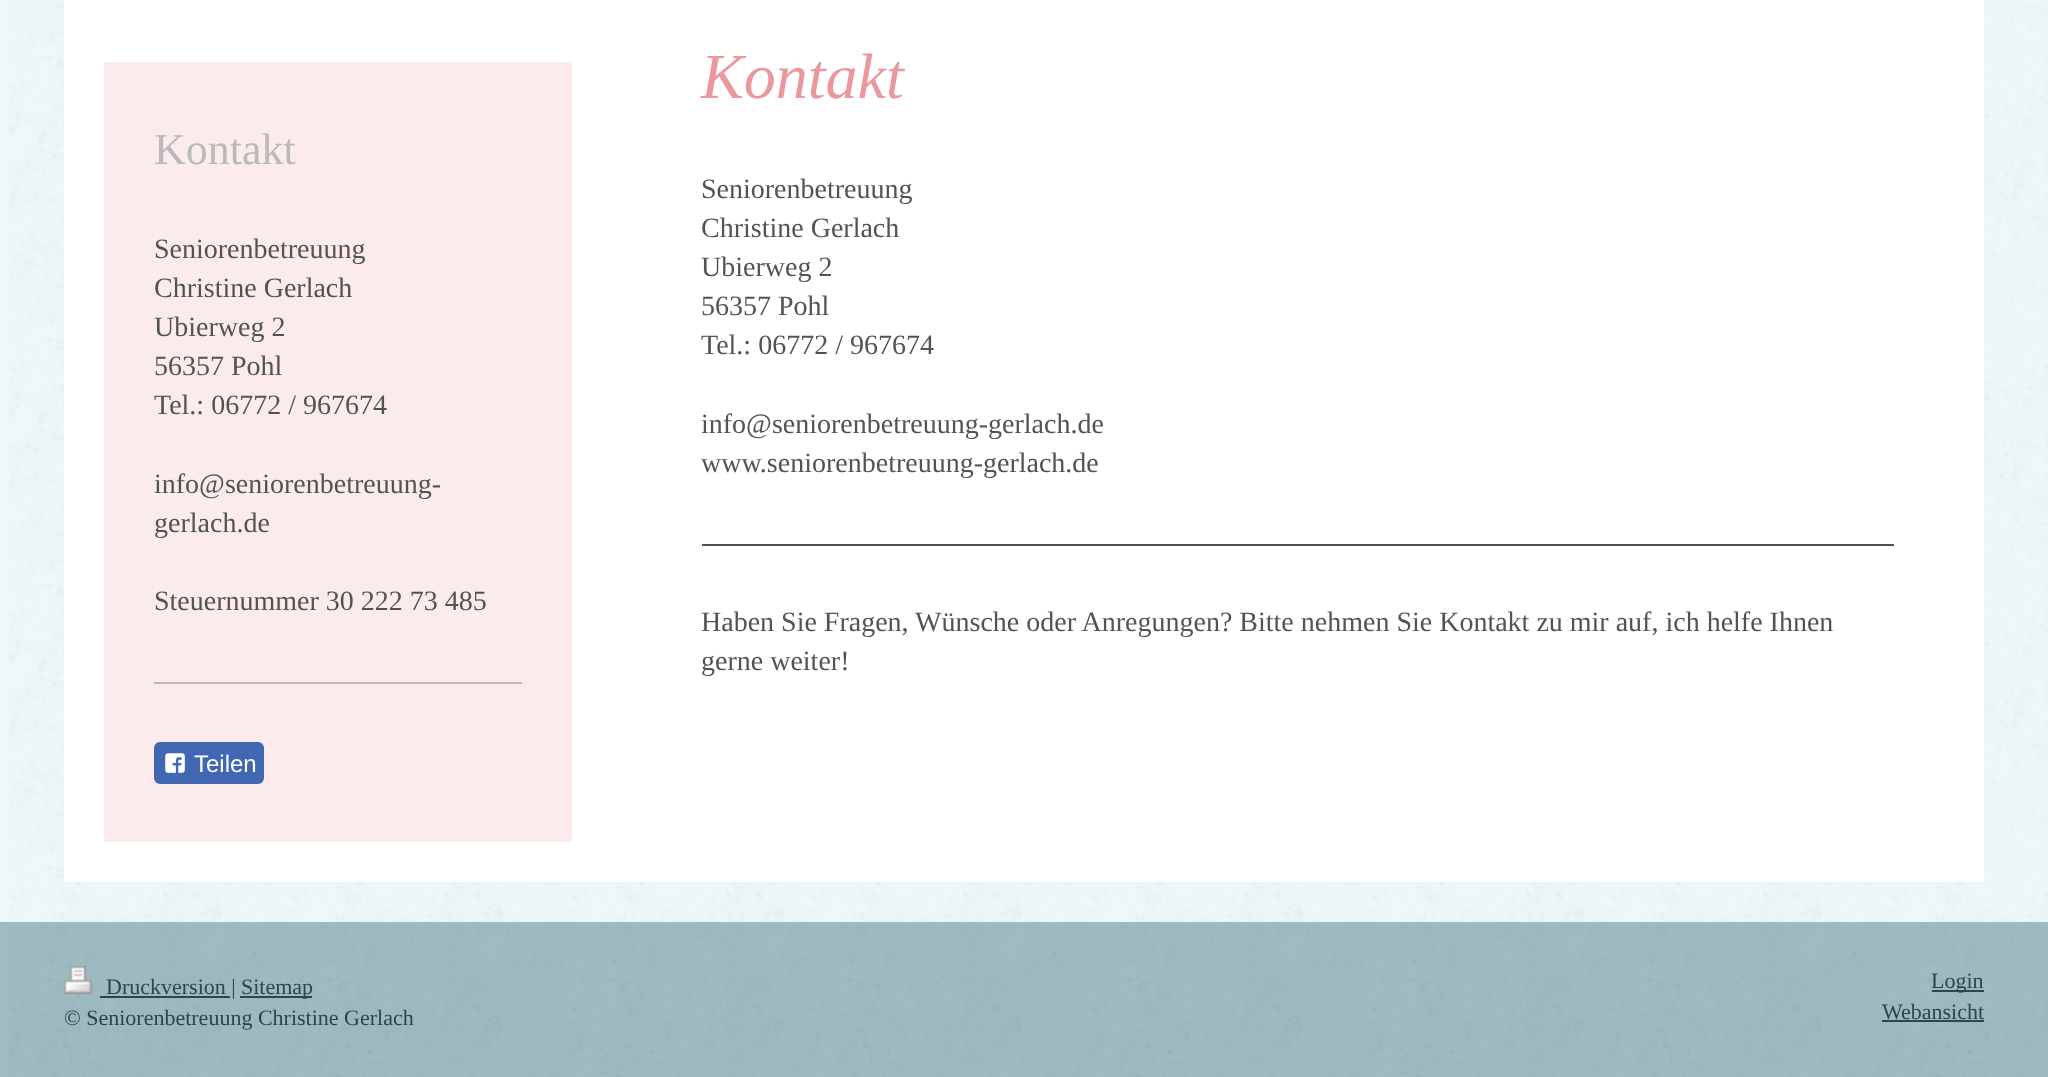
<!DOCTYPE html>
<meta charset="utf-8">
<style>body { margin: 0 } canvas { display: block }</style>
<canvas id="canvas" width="2048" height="1077"></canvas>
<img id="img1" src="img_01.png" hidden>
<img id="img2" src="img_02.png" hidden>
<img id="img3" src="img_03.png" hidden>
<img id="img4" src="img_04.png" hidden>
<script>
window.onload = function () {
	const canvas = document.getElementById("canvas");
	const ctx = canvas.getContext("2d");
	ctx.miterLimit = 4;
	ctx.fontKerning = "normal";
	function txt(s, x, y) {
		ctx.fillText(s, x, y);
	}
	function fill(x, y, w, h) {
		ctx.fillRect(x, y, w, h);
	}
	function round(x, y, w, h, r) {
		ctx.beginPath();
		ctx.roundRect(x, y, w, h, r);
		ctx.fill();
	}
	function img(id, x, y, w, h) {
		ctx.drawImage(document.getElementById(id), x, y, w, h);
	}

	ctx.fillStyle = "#EDF7F9";
	fill(0, 0, 2048, 1077);
	img("img1", 9, 3, 2039, 919);
	ctx.fillStyle = "#FFFFFF";
	fill(64, 0, 1920, 882);
	ctx.fillStyle = "#FBEBEC";
	fill(104, 62, 468, 780);
	ctx.fillStyle = "#BABABA";
	fill(154, 682, 368, 2);
	ctx.fillStyle = "#4267B2";
	round(154, 742, 110, 42, 6);
	img("img2", 165, 753, 20, 20);
	ctx.fillStyle = "#535353";
	fill(702, 544, 1192, 2);
	ctx.fillStyle = "#9EBBC1";
	fill(0, 922, 2048, 155);
	img("img3", 9, 925, 2039, 152);
	img("img4", 64, 966, 29, 28);
	ctx.fillStyle = "#29484E";
	fill(100, 996, 130, 2);
	fill(240, 996, 72, 2);
	fill(1932, 990, 52, 2);
	fill(1882, 1020, 102, 2);
	ctx.font = "44px Liberation Serif";
	ctx.fillStyle = "#BABABA";
	txt("Kontakt", 154, 164);
	ctx.font = "28px Liberation Serif";
	ctx.fillStyle = "#535353";
	txt("Seniorenbetreuung", 154, 258);
	txt("Christine Gerlach", 154, 297);
	txt("Ubierweg 2", 154, 336);
	txt("56357 Pohl", 154, 375);
	txt("Tel.: 06772 / 967674", 154, 414);
	txt("info@seniorenbetreuung-", 154, 493);
	txt("gerlach.de", 154, 532);
	txt("Steuernummer 30 222 73 485", 154, 610);
	ctx.font = "24px Liberation Sans";
	ctx.fillStyle = "#FFFFFF";
	txt("Teilen", 194, 772);
	ctx.font = "italic 64px Liberation Serif";
	ctx.fillStyle = "#EA989E";
	txt("Kontakt", 701, 98);
	ctx.font = "28px Liberation Serif";
	ctx.fillStyle = "#535353";
	txt("Seniorenbetreuung", 701, 198);
	txt("Christine Gerlach", 701, 237);
	txt("Ubierweg 2", 701, 276);
	txt("56357 Pohl", 701, 315);
	txt("Tel.: 06772 / 967674", 701, 354);
	txt("info@seniorenbetreuung-gerlach.de", 701, 433);
	txt("www.seniorenbetreuung-gerlach.de", 701, 472);
	txt("Haben Sie Fragen, Wünsche oder Anregungen? Bitte nehmen Sie Kontakt zu mir auf, ich helfe Ihnen", 701, 631);
	txt("gerne weiter!", 701, 670);
	ctx.font = "22px Liberation Serif";
	ctx.fillStyle = "#29484E";
	txt("Druckversion |", 106, 994);
	txt("Sitemap", 241, 994);
	txt("© Seniorenbetreuung Christine Gerlach", 64, 1025);
	txt("Login", 1931, 988);
	txt("Webansicht", 1882, 1019);
};
</script>
